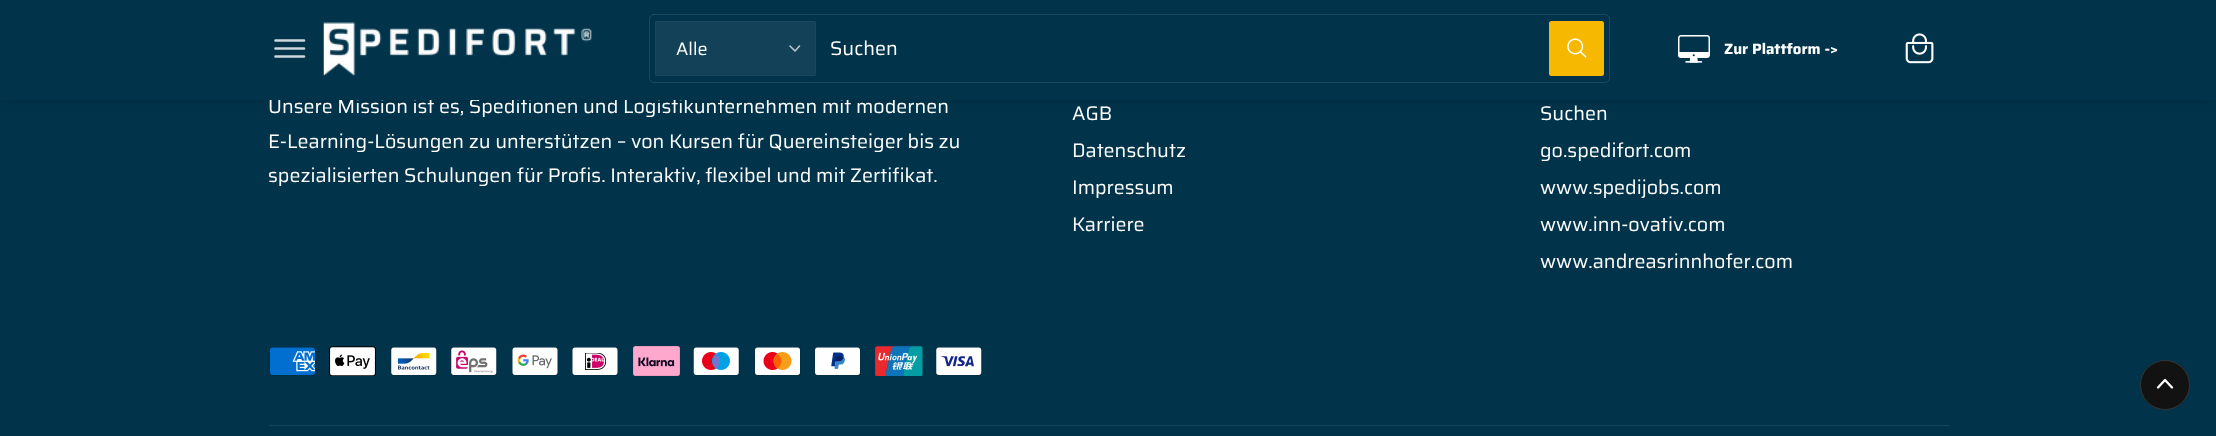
<!DOCTYPE html>
<meta charset="utf-8">
<style>body { margin: 0 } canvas { display: block }</style>
<canvas id="canvas" width="2216" height="436"></canvas>
<img id="img1" src="img_05.png" hidden>
<img id="img2" src="img_06.png" hidden>
<img id="img3" src="img_07.png" hidden>
<img id="img4" src="img_08.png" hidden>
<img id="img5" src="img_09.png" hidden>
<img id="img6" src="img_10.png" hidden>
<img id="img7" src="img_11.png" hidden>
<img id="img8" src="img_12.png" hidden>
<img id="img9" src="img_13.png" hidden>
<img id="img10" src="img_14.png" hidden>
<img id="img11" src="img_15.png" hidden>
<img id="img12" src="img_16.png" hidden>
<img id="img13" src="img_03.png" hidden>
<img id="img14" src="img_02.png" hidden>
<img id="img15" src="img_04.png" hidden>
<img id="img16" src="img_01.png" hidden>
<script>
window.onload = function () {
	const canvas = document.getElementById("canvas");
	const ctx = canvas.getContext("2d");
	ctx.miterLimit = 4;
	ctx.fontKerning = "normal";
	function txt(s, x, y) {
		ctx.fillText(s, x, y);
	}
	function fill(x, y, w, h) {
		ctx.fillRect(x, y, w, h);
	}
	function round(x, y, w, h, r) {
		ctx.beginPath();
		ctx.roundRect(x, y, w, h, r);
		ctx.fill();
	}
	function img(id, x, y, w, h) {
		ctx.drawImage(document.getElementById(id), x, y, w, h);
	}

	ctx.fillStyle = "#01344B";
	fill(0, 0, 2216, 436);
	ctx.fillStyle = "rgba(0, 0, 0, 0.15)";
	ctx.filter = "blur(6px)";
	ctx.beginPath();
	ctx.rect(0, 1, 2216, 100);
	ctx.fill();
	ctx.filter = "none";
	img("img1", 269, 347, 47, 29);
	img("img2", 329, 346, 47, 30);
	img("img3", 390, 347, 47, 29);
	img("img4", 450, 347, 47, 29);
	img("img5", 512, 347, 46, 29);
	img("img6", 572, 347, 46, 29);
	img("img7", 633, 346, 47, 30);
	img("img8", 693, 347, 47, 29);
	img("img9", 754, 347, 47, 29);
	img("img10", 814, 347, 47, 29);
	img("img11", 875, 346, 48, 30);
	img("img12", 935, 347, 47, 29);
	ctx.fillStyle = "#154459";
	fill(269, 425, 1680, 1);
	ctx.fillStyle = "#121212";
	ctx.beginPath();
	ctx.arc(2165, 385, 25, 0, Math.PI * 2);
	ctx.fill();
	ctx.beginPath();
	ctx.arc(2165, 385, 24.5, 0, Math.PI * 2);
	ctx.strokeStyle = "rgba(255, 255, 255, 0.15)";
	ctx.stroke();
	ctx.beginPath();
	ctx.moveTo(2172, 387.5);
	ctx.lineTo(2165, 380);
	ctx.lineTo(2158, 387.5);
	ctx.strokeStyle = "#FFFFFF";
	ctx.lineWidth = 2.3;
	ctx.lineCap = "round";
	ctx.lineJoin = "round";
	ctx.stroke();
	ctx.font = "19.7px Saira";
	ctx.fillStyle = "#FFFFFF";
	txt("Unsere Mission ist es, Speditionen und Logistikunternehmen mit modernen", 268, 113);
	ctx.fillStyle = "#01344B";
	fill(0, 0, 2216, 100);
	img("img13", 1678, 35, 32, 28);
	ctx.font = "bold 15px Saira";
	ctx.fillStyle = "#FFFFFF";
	txt("Zur Plattform ->", 1724, 54);
	ctx.fillStyle = "#F6B800";
	round(1549, 21, 55, 55, 2.5);
	img("img14", 1567, 38, 20, 20);
	ctx.fillStyle = "#134258";
	round(655, 21, 161, 55, 2.5);
	ctx.strokeStyle = "rgba(255, 255, 255, 0.03)";
	ctx.lineWidth = 1;
	ctx.lineJoin = "miter";
	ctx.strokeRect(655.5, 21.5, 160, 54);
	ctx.beginPath();
	ctx.moveTo(790, 46);
	ctx.lineTo(795, 51);
	ctx.lineTo(799.5, 46);
	ctx.strokeStyle = "#B8C6CD";
	ctx.lineWidth = 1.6;
	ctx.lineJoin = "round";
	ctx.stroke();
	ctx.beginPath();
	ctx.roundRect(649.5, 14.5, 960, 68, 4.5);
	ctx.strokeStyle = "rgba(255, 255, 255, 0.1)";
	ctx.lineWidth = 1;
	ctx.lineJoin = "miter";
	ctx.stroke();
	ctx.font = "19.7px Saira";
	ctx.fillStyle = "#FFFFFF";
	txt("Suchen", 830, 55);
	ctx.font = "18px Saira";
	txt("Alle", 676, 55);
	img("img15", 1905, 33, 29, 31);
	ctx.beginPath();
	ctx.moveTo(275.5, 40.5);
	ctx.lineTo(304, 40.5);
	ctx.moveTo(275.5, 48.5);
	ctx.lineTo(304, 48.5);
	ctx.moveTo(275.5, 56.5);
	ctx.lineTo(304, 56.5);
	ctx.strokeStyle = "#CCD6DB";
	ctx.lineWidth = 2.6;
	ctx.stroke();
	img("img16", 323, 22, 269, 54);
	ctx.font = "19.7px Saira";
	txt("E-Learning-Lösungen zu unterstützen – von Kursen für Quereinsteiger bis zu", 268, 148);
	txt("spezialisierten Schulungen für Profis. Interaktiv, flexibel und mit Zertifikat.", 268, 182);
	txt("AGB", 1072, 120);
	txt("Datenschutz", 1072, 157);
	txt("Impressum", 1072, 194);
	txt("Karriere", 1072, 231);
	txt("Suchen", 1540, 120);
	txt("go.spedifort.com", 1540, 157);
	txt("www.spedijobs.com", 1540, 194);
	txt("www.inn-ovativ.com", 1540, 231);
	txt("www.andreasrinnhofer.com", 1540, 268);
};
</script>
